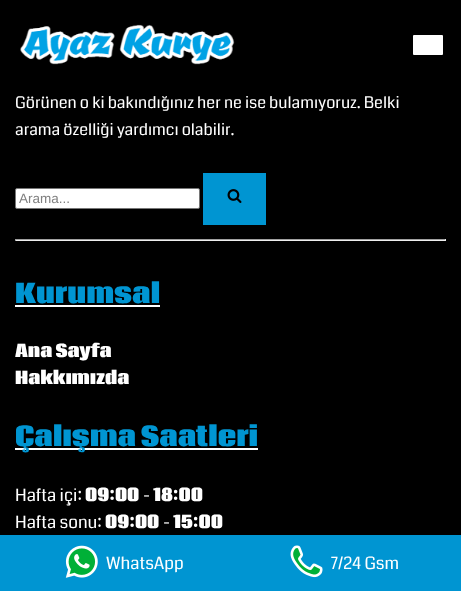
<!DOCTYPE html>
<meta charset="utf-8">
<style>body { margin: 0 } canvas { display: block }</style>
<canvas id="canvas" width="461" height="591"></canvas>
<img id="img1" src="img_01.png" hidden>
<img id="img2" src="img_02.png" hidden>
<img id="img3" src="img_03.png" hidden>
<img id="img4" src="img_04.png" hidden>
<script>
window.onload = function () {
	const canvas = document.getElementById("canvas");
	const ctx = canvas.getContext("2d");
	ctx.miterLimit = 4;
	ctx.fontKerning = "normal";
	function txt(s, x, y) {
		ctx.fillText(s, x, y);
	}
	function fill(x, y, w, h) {
		ctx.fillRect(x, y, w, h);
	}
	function img(id, x, y, w, h) {
		ctx.drawImage(document.getElementById(id), x, y, w, h);
	}

	ctx.fillStyle = "#000000";
	fill(0, 0, 461, 591);
	img("img1", 20, 24, 215, 41);
	ctx.fillStyle = "#FFFFFF";
	ctx.beginPath();
	ctx.roundRect(411.5, 33.5, 33, 23, 2.5);
	ctx.fill();
	ctx.strokeStyle = "#000000";
	ctx.lineWidth = 3;
	ctx.stroke();
	ctx.beginPath();
	ctx.roundRect(15.5, 188.5, 184, 20, 1.5);
	ctx.fill();
	ctx.strokeStyle = "#767676";
	ctx.lineWidth = 1;
	ctx.stroke();
	ctx.fillStyle = "#0095D2";
	fill(203, 173, 63, 52);
	img("img2", 227, 189, 15, 14);
	ctx.fillStyle = "#9F9F9F";
	fill(15, 239, 431, 1);
	ctx.fillStyle = "#EEEEEE";
	fill(445, 239, 1, 2);
	fill(15, 240, 431, 1);
	ctx.fillStyle = "#9F9F9F";
	fill(15, 239, 1, 2);
	ctx.fillStyle = "#FFFFFF";
	fill(15, 305, 145, 2);
	fill(15, 448, 243, 2);
	ctx.fillStyle = "#0095D2";
	fill(0, 535, 461, 56);
	img("img3", 65, 545, 33, 33);
	img("img4", 290, 545, 33, 33);
	ctx.font = "16px Coda";
	ctx.fillStyle = "#FFFFFF";
	txt("Görünen o ki bakındığınız her ne ise bulamıyoruz. Belki", 15, 108);
	txt("arama özelliği yardımcı olabilir.", 15, 135);
	ctx.font = "13.5px Liberation Sans";
	ctx.fillStyle = "#808080";
	txt("Arama...", 19, 203);
	ctx.font = "800 26px Coda";
	ctx.fillStyle = "#0095D2";
	txt("Kurumsal", 15, 303);
	ctx.font = "800 17px Coda";
	ctx.fillStyle = "#FFFFFF";
	txt("Ana Sayfa", 15, 357);
	txt("Hakkımızda", 15, 384);
	ctx.font = "800 26px Coda";
	ctx.fillStyle = "#0095D2";
	txt("Çalışma Saatleri", 15, 446);
	ctx.font = "17px Coda";
	ctx.fillStyle = "#FFFFFF";
	txt("Hafta içi:", 15, 501);
	ctx.font = "800 17px Coda";
	txt("09:00", 85, 501);
	ctx.font = "17px Coda";
	txt("-", 143, 501);
	ctx.font = "800 17px Coda";
	txt("18:00", 153, 501);
	ctx.font = "17px Coda";
	txt("Hafta sonu:", 15, 528);
	ctx.font = "800 17px Coda";
	txt("09:00", 105, 528);
	ctx.font = "17px Coda";
	txt("-", 163, 528);
	ctx.font = "800 17px Coda";
	txt("15:00", 173, 528);
	ctx.font = "17px Coda";
	txt("WhatsApp", 106, 569);
	txt("7/24 Gsm", 331, 569);
};
</script>
